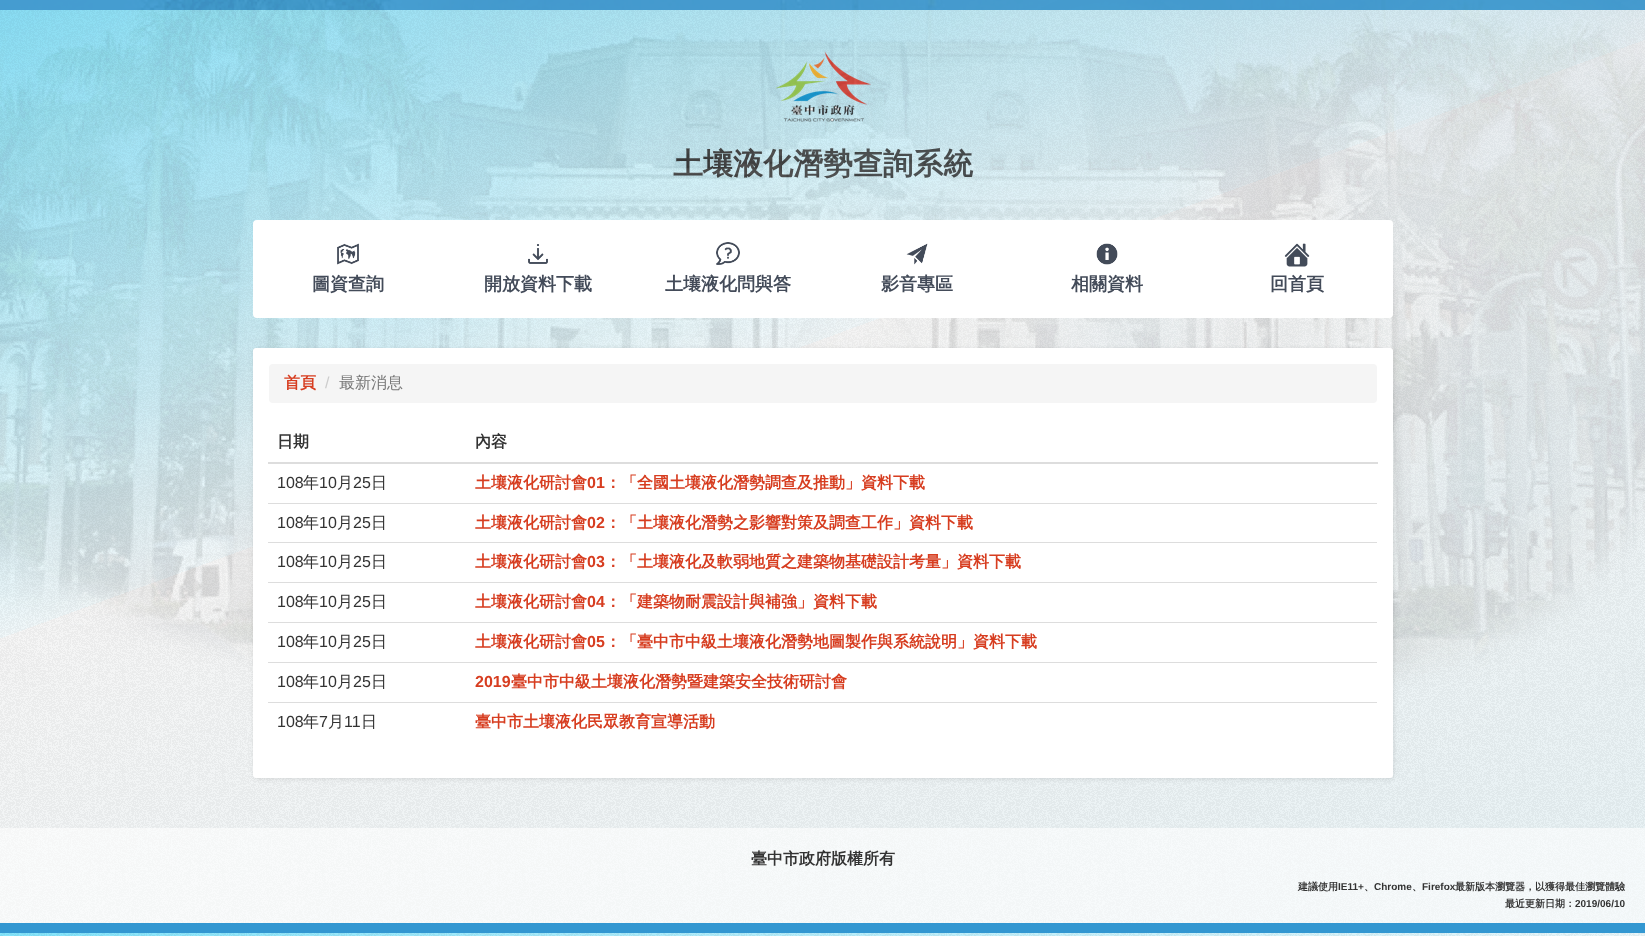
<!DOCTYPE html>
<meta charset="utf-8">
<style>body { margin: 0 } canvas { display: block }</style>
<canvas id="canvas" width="1645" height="936"></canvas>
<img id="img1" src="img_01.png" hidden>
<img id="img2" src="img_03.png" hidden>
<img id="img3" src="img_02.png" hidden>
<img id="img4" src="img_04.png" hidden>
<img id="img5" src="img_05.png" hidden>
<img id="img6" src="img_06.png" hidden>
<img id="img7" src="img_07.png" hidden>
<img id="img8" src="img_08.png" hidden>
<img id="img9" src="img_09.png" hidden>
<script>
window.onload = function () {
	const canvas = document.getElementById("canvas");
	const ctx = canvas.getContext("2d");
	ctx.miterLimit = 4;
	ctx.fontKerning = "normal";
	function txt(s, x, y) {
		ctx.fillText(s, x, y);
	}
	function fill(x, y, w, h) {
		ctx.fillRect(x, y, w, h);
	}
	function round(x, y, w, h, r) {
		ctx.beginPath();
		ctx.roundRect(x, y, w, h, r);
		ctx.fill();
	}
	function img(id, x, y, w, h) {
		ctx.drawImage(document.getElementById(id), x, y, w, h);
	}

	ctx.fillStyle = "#FFFFFF";
	fill(0, 0, 1645, 936);
	img("img1", 0, 10, 1645, 926);
	ctx.fillStyle = "#3397D1";
	fill(0, 0, 1645, 10);
	img("img2", 775, 51, 96, 71);
	ctx.fillStyle = "rgba(255, 255, 255, 0.6)";
	fill(0, 828, 1645, 95);
	ctx.fillStyle = "#3397D1";
	fill(0, 923, 1645, 10);
	ctx.font = "bold 30px WenQuanYi Zen Hei";
	ctx.fillStyle = "#333333";
	txt("土壤液化潛勢查詢系統", 673, 174);
	img("img3", 0, 0, 1645, 687);
	ctx.fillStyle = "#FFFFFF";
	round(253, 220, 1140, 98, 4);
	ctx.fillStyle = "rgba(0, 0, 0, 0.2)";
	ctx.filter = "blur(0.5px)";
	ctx.beginPath();
	ctx.rect(254, 221, 189, 96);
	ctx.fill();
	ctx.filter = "none";
	ctx.fillStyle = "#FFFFFF";
	fill(254, 221, 189, 96);
	img("img4", 337, 243, 22, 22);
	ctx.font = "bold 18px WenQuanYi Zen Hei";
	ctx.fillStyle = "#434B59";
	txt("圖資查詢", 312, 290);
	ctx.fillStyle = "rgba(0, 0, 0, 0.2)";
	ctx.filter = "blur(0.5px)";
	ctx.beginPath();
	ctx.rect(443, 221, 190, 96);
	ctx.fill();
	ctx.filter = "none";
	ctx.fillStyle = "#FFFFFF";
	fill(443, 221, 190, 96);
	img("img5", 528, 244, 20, 20);
	ctx.fillStyle = "#434B59";
	txt("開放資料下載", 484, 290);
	ctx.fillStyle = "rgba(0, 0, 0, 0.2)";
	ctx.filter = "blur(0.5px)";
	ctx.beginPath();
	ctx.rect(633, 221, 189, 96);
	ctx.fill();
	ctx.filter = "none";
	ctx.fillStyle = "#FFFFFF";
	fill(633, 221, 189, 96);
	img("img6", 716, 242, 24, 23);
	ctx.fillStyle = "#434B59";
	txt("土壤液化問與答", 665, 290);
	ctx.fillStyle = "rgba(0, 0, 0, 0.2)";
	ctx.filter = "blur(0.5px)";
	ctx.beginPath();
	ctx.rect(822, 221, 190, 96);
	ctx.fill();
	ctx.filter = "none";
	ctx.fillStyle = "#FFFFFF";
	fill(822, 221, 190, 96);
	img("img7", 906, 243, 22, 22);
	ctx.fillStyle = "#434B59";
	txt("影音專區", 881, 290);
	ctx.fillStyle = "rgba(0, 0, 0, 0.2)";
	ctx.filter = "blur(0.5px)";
	ctx.beginPath();
	ctx.rect(1012, 221, 190, 96);
	ctx.fill();
	ctx.filter = "none";
	ctx.fillStyle = "#FFFFFF";
	fill(1012, 221, 190, 96);
	img("img8", 1096, 243, 22, 22);
	ctx.fillStyle = "#434B59";
	txt("相關資料", 1071, 290);
	ctx.fillStyle = "rgba(0, 0, 0, 0.2)";
	ctx.filter = "blur(0.5px)";
	ctx.beginPath();
	ctx.rect(1202, 221, 189, 96);
	ctx.fill();
	ctx.filter = "none";
	ctx.fillStyle = "#FFFFFF";
	fill(1202, 221, 189, 96);
	img("img9", 1284, 243, 26, 24);
	ctx.fillStyle = "#434B59";
	txt("回首頁", 1270, 290);
	ctx.fillStyle = "rgba(0, 0, 0, 0.1)";
	ctx.filter = "blur(2.5px)";
	ctx.beginPath();
	ctx.roundRect(254, 349, 1140, 430, 3);
	ctx.fill();
	ctx.filter = "none";
	ctx.fillStyle = "#FFFFFF";
	round(253, 348, 1140, 430, 3);
	ctx.fillStyle = "#F5F5F5";
	round(269, 364, 1108, 39, 4);
	ctx.font = "bold 16px WenQuanYi Zen Hei";
	ctx.fillStyle = "#D73D20";
	txt("首頁", 284, 388);
	ctx.font = "16px Liberation Sans";
	ctx.fillStyle = "#CCCCCC";
	txt("/", 325, 388);
	ctx.font = "500 16px WenQuanYi Zen Hei";
	ctx.fillStyle = "#777777";
	txt("最新消息", 339, 388);
	ctx.font = "bold 16px WenQuanYi Zen Hei";
	ctx.fillStyle = "#333333";
	txt("日期", 277, 447);
	ctx.fillStyle = "#DDDDDD";
	fill(268, 462, 1110, 2);
	ctx.fillStyle = "#333333";
	txt("內容", 475, 447);
	ctx.font = "16px Liberation Sans";
	txt("108", 277, 488);
	ctx.font = "500 16px WenQuanYi Zen Hei";
	txt("年", 303, 488);
	ctx.font = "16px Liberation Sans";
	txt("10", 319, 488);
	ctx.font = "500 16px WenQuanYi Zen Hei";
	txt("月", 337, 488);
	ctx.font = "16px Liberation Sans";
	txt("25", 353, 488);
	ctx.font = "500 16px WenQuanYi Zen Hei";
	txt("日", 371, 488);
	ctx.font = "bold 16px WenQuanYi Zen Hei";
	ctx.fillStyle = "#D73D20";
	txt("土壤液化研討會", 475, 488);
	ctx.font = "bold 16px Liberation Sans";
	txt("01", 587, 488);
	ctx.font = "bold 16px WenQuanYi Zen Hei";
	txt("：「全國土壤液化潛勢調查及推動」資料下載", 605, 488);
	ctx.font = "16px Liberation Sans";
	ctx.fillStyle = "#333333";
	txt("108", 277, 528);
	ctx.font = "500 16px WenQuanYi Zen Hei";
	txt("年", 303, 528);
	ctx.font = "16px Liberation Sans";
	txt("10", 319, 528);
	ctx.font = "500 16px WenQuanYi Zen Hei";
	txt("月", 337, 528);
	ctx.font = "16px Liberation Sans";
	txt("25", 353, 528);
	ctx.font = "500 16px WenQuanYi Zen Hei";
	txt("日", 371, 528);
	ctx.fillStyle = "#DDDDDD";
	fill(268, 503, 1109, 1);
	ctx.font = "bold 16px WenQuanYi Zen Hei";
	ctx.fillStyle = "#D73D20";
	txt("土壤液化研討會", 475, 528);
	ctx.font = "bold 16px Liberation Sans";
	txt("02", 587, 528);
	ctx.font = "bold 16px WenQuanYi Zen Hei";
	txt("：「土壤液化潛勢之影響對策及調查工作」資料下載", 605, 528);
	ctx.font = "16px Liberation Sans";
	ctx.fillStyle = "#333333";
	txt("108", 277, 567);
	ctx.font = "500 16px WenQuanYi Zen Hei";
	txt("年", 303, 567);
	ctx.font = "16px Liberation Sans";
	txt("10", 319, 567);
	ctx.font = "500 16px WenQuanYi Zen Hei";
	txt("月", 337, 567);
	ctx.font = "16px Liberation Sans";
	txt("25", 353, 567);
	ctx.font = "500 16px WenQuanYi Zen Hei";
	txt("日", 371, 567);
	ctx.fillStyle = "#DDDDDD";
	fill(268, 542, 1109, 1);
	ctx.font = "bold 16px WenQuanYi Zen Hei";
	ctx.fillStyle = "#D73D20";
	txt("土壤液化研討會", 475, 567);
	ctx.font = "bold 16px Liberation Sans";
	txt("03", 587, 567);
	ctx.font = "bold 16px WenQuanYi Zen Hei";
	txt("：「土壤液化及軟弱地質之建築物基礎設計考量」資料下載", 605, 567);
	ctx.font = "16px Liberation Sans";
	ctx.fillStyle = "#333333";
	txt("108", 277, 607);
	ctx.font = "500 16px WenQuanYi Zen Hei";
	txt("年", 303, 607);
	ctx.font = "16px Liberation Sans";
	txt("10", 319, 607);
	ctx.font = "500 16px WenQuanYi Zen Hei";
	txt("月", 337, 607);
	ctx.font = "16px Liberation Sans";
	txt("25", 353, 607);
	ctx.font = "500 16px WenQuanYi Zen Hei";
	txt("日", 371, 607);
	ctx.fillStyle = "#DDDDDD";
	fill(268, 582, 1109, 1);
	ctx.font = "bold 16px WenQuanYi Zen Hei";
	ctx.fillStyle = "#D73D20";
	txt("土壤液化研討會", 475, 607);
	ctx.font = "bold 16px Liberation Sans";
	txt("04", 587, 607);
	ctx.font = "bold 16px WenQuanYi Zen Hei";
	txt("：「建築物耐震設計與補強」資料下載", 605, 607);
	ctx.font = "16px Liberation Sans";
	ctx.fillStyle = "#333333";
	txt("108", 277, 647);
	ctx.font = "500 16px WenQuanYi Zen Hei";
	txt("年", 303, 647);
	ctx.font = "16px Liberation Sans";
	txt("10", 319, 647);
	ctx.font = "500 16px WenQuanYi Zen Hei";
	txt("月", 337, 647);
	ctx.font = "16px Liberation Sans";
	txt("25", 353, 647);
	ctx.font = "500 16px WenQuanYi Zen Hei";
	txt("日", 371, 647);
	ctx.fillStyle = "#DDDDDD";
	fill(268, 622, 1109, 1);
	ctx.font = "bold 16px WenQuanYi Zen Hei";
	ctx.fillStyle = "#D73D20";
	txt("土壤液化研討會", 475, 647);
	ctx.font = "bold 16px Liberation Sans";
	txt("05", 587, 647);
	ctx.font = "bold 16px WenQuanYi Zen Hei";
	txt("：「臺中市中級土壤液化潛勢地圖製作與系統說明」資料下載", 605, 647);
	ctx.font = "16px Liberation Sans";
	ctx.fillStyle = "#333333";
	txt("108", 277, 687);
	ctx.font = "500 16px WenQuanYi Zen Hei";
	txt("年", 303, 687);
	ctx.font = "16px Liberation Sans";
	txt("10", 319, 687);
	ctx.font = "500 16px WenQuanYi Zen Hei";
	txt("月", 337, 687);
	ctx.font = "16px Liberation Sans";
	txt("25", 353, 687);
	ctx.font = "500 16px WenQuanYi Zen Hei";
	txt("日", 371, 687);
	ctx.fillStyle = "#DDDDDD";
	fill(268, 662, 1109, 1);
	ctx.font = "bold 16px Liberation Sans";
	ctx.fillStyle = "#D73D20";
	txt("2019", 475, 687);
	ctx.font = "bold 16px WenQuanYi Zen Hei";
	txt("臺中市中級土壤液化潛勢暨建築安全技術研討會", 511, 687);
	ctx.font = "16px Liberation Sans";
	ctx.fillStyle = "#333333";
	txt("108", 277, 727);
	ctx.font = "500 16px WenQuanYi Zen Hei";
	txt("年", 303, 727);
	ctx.font = "16px Liberation Sans";
	txt("7", 319, 727);
	ctx.font = "500 16px WenQuanYi Zen Hei";
	txt("月", 328, 727);
	ctx.font = "16px Liberation Sans";
	txt("11", 344, 727);
	ctx.font = "500 16px WenQuanYi Zen Hei";
	txt("日", 361, 727);
	ctx.fillStyle = "#DDDDDD";
	fill(268, 702, 1109, 1);
	ctx.font = "bold 16px WenQuanYi Zen Hei";
	ctx.fillStyle = "#D73D20";
	txt("臺中市土壤液化民眾教育宣導活動", 475, 727);
	ctx.fillStyle = "#333333";
	txt("臺中市政府版權所有", 751, 864);
	ctx.font = "bold 10px WenQuanYi Zen Hei";
	txt("建議使用", 1298, 890);
	ctx.font = "bold 10px Liberation Sans";
	txt("IE11+", 1338, 890);
	txt("Chrome", 1374, 890);
	txt("Firefox", 1422, 890);
	ctx.font = "bold 10px WenQuanYi Zen Hei";
	txt("最新版本瀏覽器，以獲得最佳瀏覽體驗", 1455, 890);
	txt("、", 1364, 890);
	txt("、", 1412, 890);
	txt("最近更新日期：", 1505, 907);
	ctx.font = "bold 10px Liberation Sans";
	txt("2019/06/10", 1575, 907);
};
</script>
